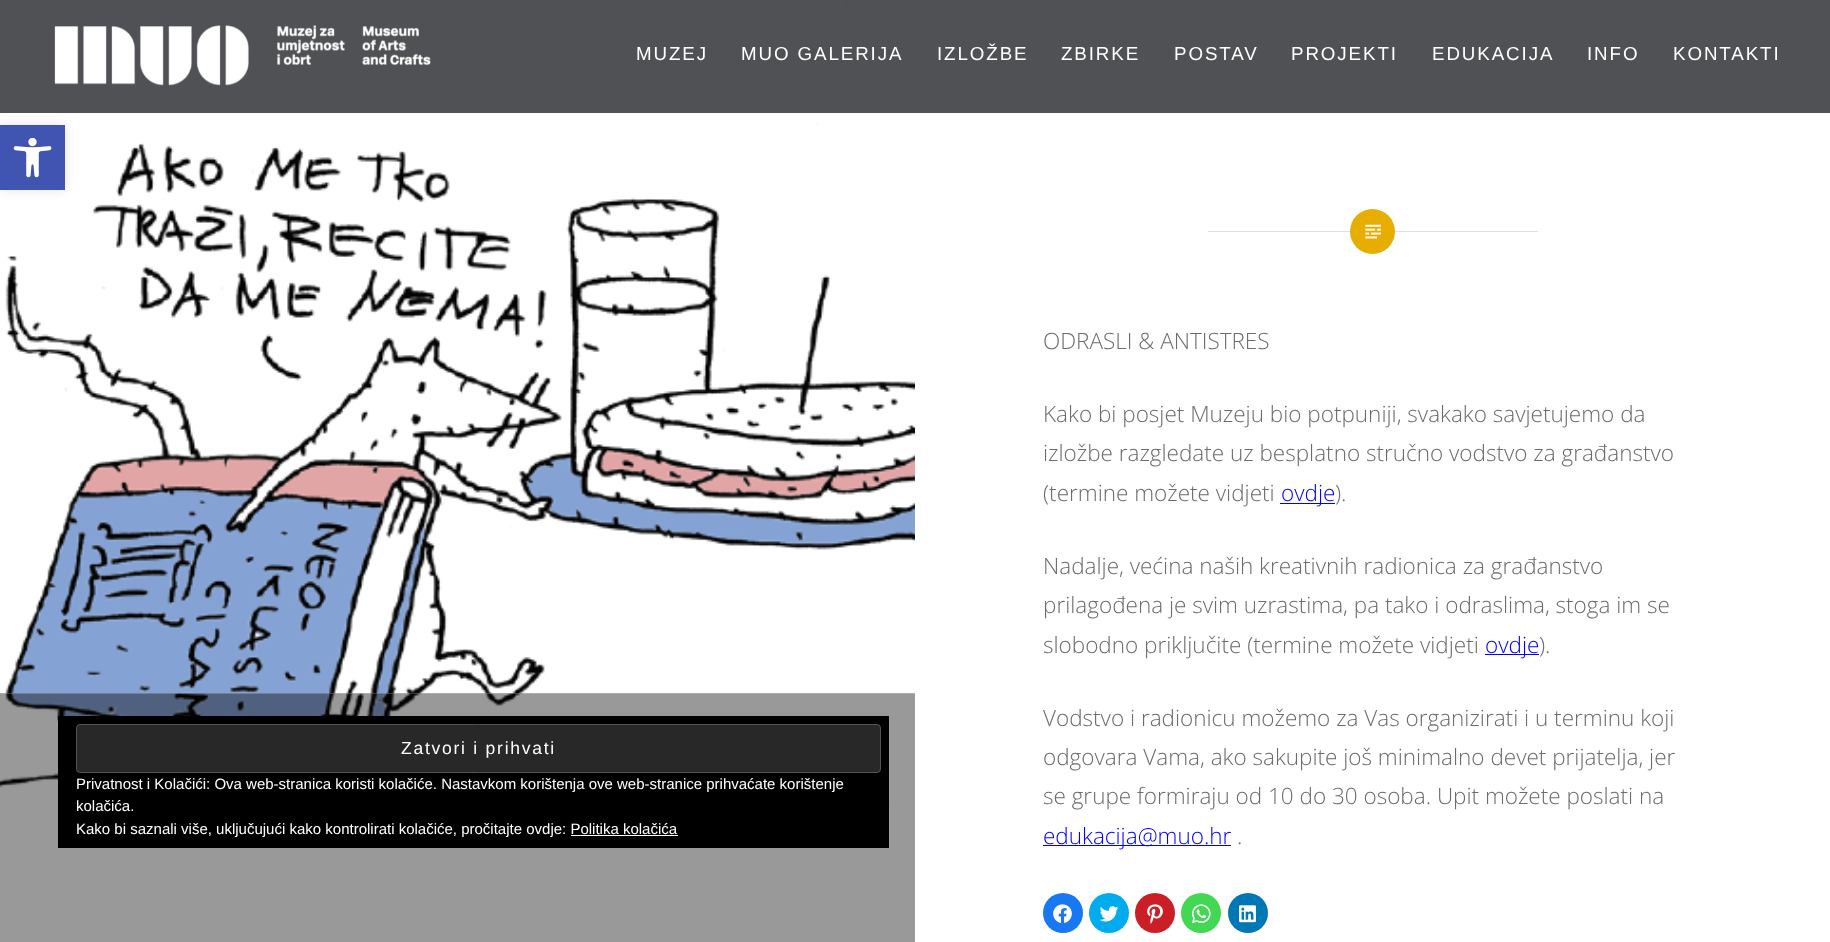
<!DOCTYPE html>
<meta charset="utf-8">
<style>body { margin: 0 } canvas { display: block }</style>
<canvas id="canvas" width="1830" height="942"></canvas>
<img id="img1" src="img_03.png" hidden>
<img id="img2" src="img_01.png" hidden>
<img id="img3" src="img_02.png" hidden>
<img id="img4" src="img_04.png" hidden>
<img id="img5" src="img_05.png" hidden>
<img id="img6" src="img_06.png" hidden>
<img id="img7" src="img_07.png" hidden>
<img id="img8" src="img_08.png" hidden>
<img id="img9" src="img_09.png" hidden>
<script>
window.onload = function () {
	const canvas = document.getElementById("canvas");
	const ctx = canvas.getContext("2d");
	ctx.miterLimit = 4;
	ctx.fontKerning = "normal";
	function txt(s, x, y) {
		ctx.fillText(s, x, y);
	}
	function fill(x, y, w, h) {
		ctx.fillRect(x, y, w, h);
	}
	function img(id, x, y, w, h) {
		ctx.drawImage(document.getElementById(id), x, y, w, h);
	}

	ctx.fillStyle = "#FFFFFF";
	fill(0, 0, 1830, 942);
	img("img1", 0, 0, 915, 942);
	ctx.fillStyle = "rgba(36, 38, 41, 0.8)";
	fill(0, 0, 1830, 113);
	ctx.fillStyle = "rgba(0, 0, 0, 0.1)";
	ctx.filter = "blur(6px)";
	ctx.beginPath();
	ctx.rect(0, 125, 65, 65);
	ctx.fill();
	ctx.filter = "none";
	ctx.fillStyle = "#4054B2";
	fill(0, 125, 65, 65);
	img("img2", 13, 138, 39, 40);
	img("img3", 54, 25, 377, 61);
	ctx.fillStyle = "rgba(0, 0, 0, 0.4)";
	fill(0, 693, 915, 249);
	ctx.fillStyle = "#000000";
	fill(58, 716, 831, 132);
	ctx.fillStyle = "#282828";
	ctx.beginPath();
	ctx.roundRect(76.5, 724.5, 804, 48, 3.5);
	ctx.fill();
	ctx.strokeStyle = "#535353";
	ctx.stroke();
	ctx.fillStyle = "#FFFFFF";
	fill(571, 835, 107, 1);
	ctx.fillStyle = "#E0E0E0";
	fill(1208, 231, 330, 1);
	ctx.fillStyle = "#E7AE01";
	ctx.beginPath();
	ctx.arc(1372.5, 231.5, 22.5, 0, Math.PI * 2);
	ctx.fill();
	img("img4", 1365, 224, 16, 15);
	ctx.fillStyle = "rgba(255, 255, 255, 0.2)";
	fill(0, 693, 915, 1);
	ctx.fillStyle = "#0000FF";
	fill(1280, 503, 55, 1);
	fill(1485, 654, 54, 1);
	fill(1043, 845, 188, 1);
	ctx.fillStyle = "#1877F2";
	ctx.beginPath();
	ctx.arc(1063, 913, 20, 0, Math.PI * 2);
	ctx.fill();
	img("img5", 1053, 904, 19, 19);
	ctx.fillStyle = "#00ACEE";
	ctx.beginPath();
	ctx.arc(1109, 913, 20, 0, Math.PI * 2);
	ctx.fill();
	img("img6", 1099, 906, 20, 16);
	ctx.fillStyle = "#CA1F27";
	ctx.beginPath();
	ctx.arc(1155, 913, 20, 0, Math.PI * 2);
	ctx.fill();
	img("img7", 1147, 904, 16, 20);
	ctx.fillStyle = "#43D854";
	ctx.beginPath();
	ctx.arc(1201, 913, 20, 0, Math.PI * 2);
	ctx.fill();
	img("img8", 1192, 904, 19, 19);
	ctx.fillStyle = "#0077B5";
	ctx.beginPath();
	ctx.arc(1248, 913, 20, 0, Math.PI * 2);
	ctx.fill();
	img("img9", 1239, 905, 17, 18);
	ctx.letterSpacing = "1.9px";
	ctx.font = "18.75px Liberation Sans";
	ctx.fillStyle = "#FFFFFF";
	txt("MUZEJ", 636, 60);
	txt("MUO GALERIJA", 741, 60);
	txt("IZLOŽBE", 937, 60);
	txt("ZBIRKE", 1061, 60);
	txt("POSTAV", 1174, 60);
	txt("PROJEKTI", 1291, 60);
	txt("EDUKACIJA", 1432, 60);
	txt("INFO", 1587, 60);
	txt("KONTAKTI", 1673, 60);
	ctx.letterSpacing = "1.75px";
	ctx.font = "17.5px Liberation Sans";
	txt("Zatvori i prihvati", 401, 754);
	ctx.letterSpacing = "0px";
	ctx.font = "15px Liberation Sans";
	txt("Privatnost i Kolačići: Ova web-stranica koristi kolačiće. Nastavkom korištenja ove web-stranice prihvaćate korištenje", 76, 789);
	txt("kolačića.", 76, 811);
	txt("Kako bi saznali više, uključujući kako kontrolirati kolačiće, pročitajte ovdje: Politika kolačića", 76, 834);
	ctx.font = "300 22.5px Open Sans";
	ctx.fillStyle = "#6A6C6E";
	txt("ODRASLI & ANTISTRES", 1043, 349);
	txt("Kako bi posjet Muzeju bio potpuniji, svakako savjetujemo da", 1043, 422);
	txt("izložbe razgledate uz besplatno stručno vodstvo za građanstvo", 1043, 461);
	txt("(termine možete vidjeti", 1043, 501);
	ctx.fillStyle = "#0000FF";
	txt("ovdje", 1281, 501);
	ctx.fillStyle = "#6A6C6E";
	txt(").", 1335, 501);
	txt("Nadalje, većina naših kreativnih radionica za građanstvo", 1043, 574);
	txt("prilagođena je svim uzrastima, pa tako i odraslima, stoga im se", 1043, 613);
	txt("slobodno priključite (termine možete vidjeti", 1043, 653);
	ctx.fillStyle = "#0000FF";
	txt("ovdje", 1485, 653);
	ctx.fillStyle = "#6A6C6E";
	txt(").", 1539, 653);
	txt("Vodstvo i radionicu možemo za Vas organizirati i u terminu koji", 1043, 726);
	txt("odgovara Vama, ako sakupite još minimalno devet prijatelja, jer", 1043, 765);
	txt("se grupe formiraju od 10 do 30 osoba. Upit možete poslati na", 1043, 804);
	ctx.fillStyle = "#0000FF";
	txt("edukacija@muo.hr", 1043, 844);
	ctx.fillStyle = "#6A6C6E";
	txt(".", 1237, 844);
};
</script>
